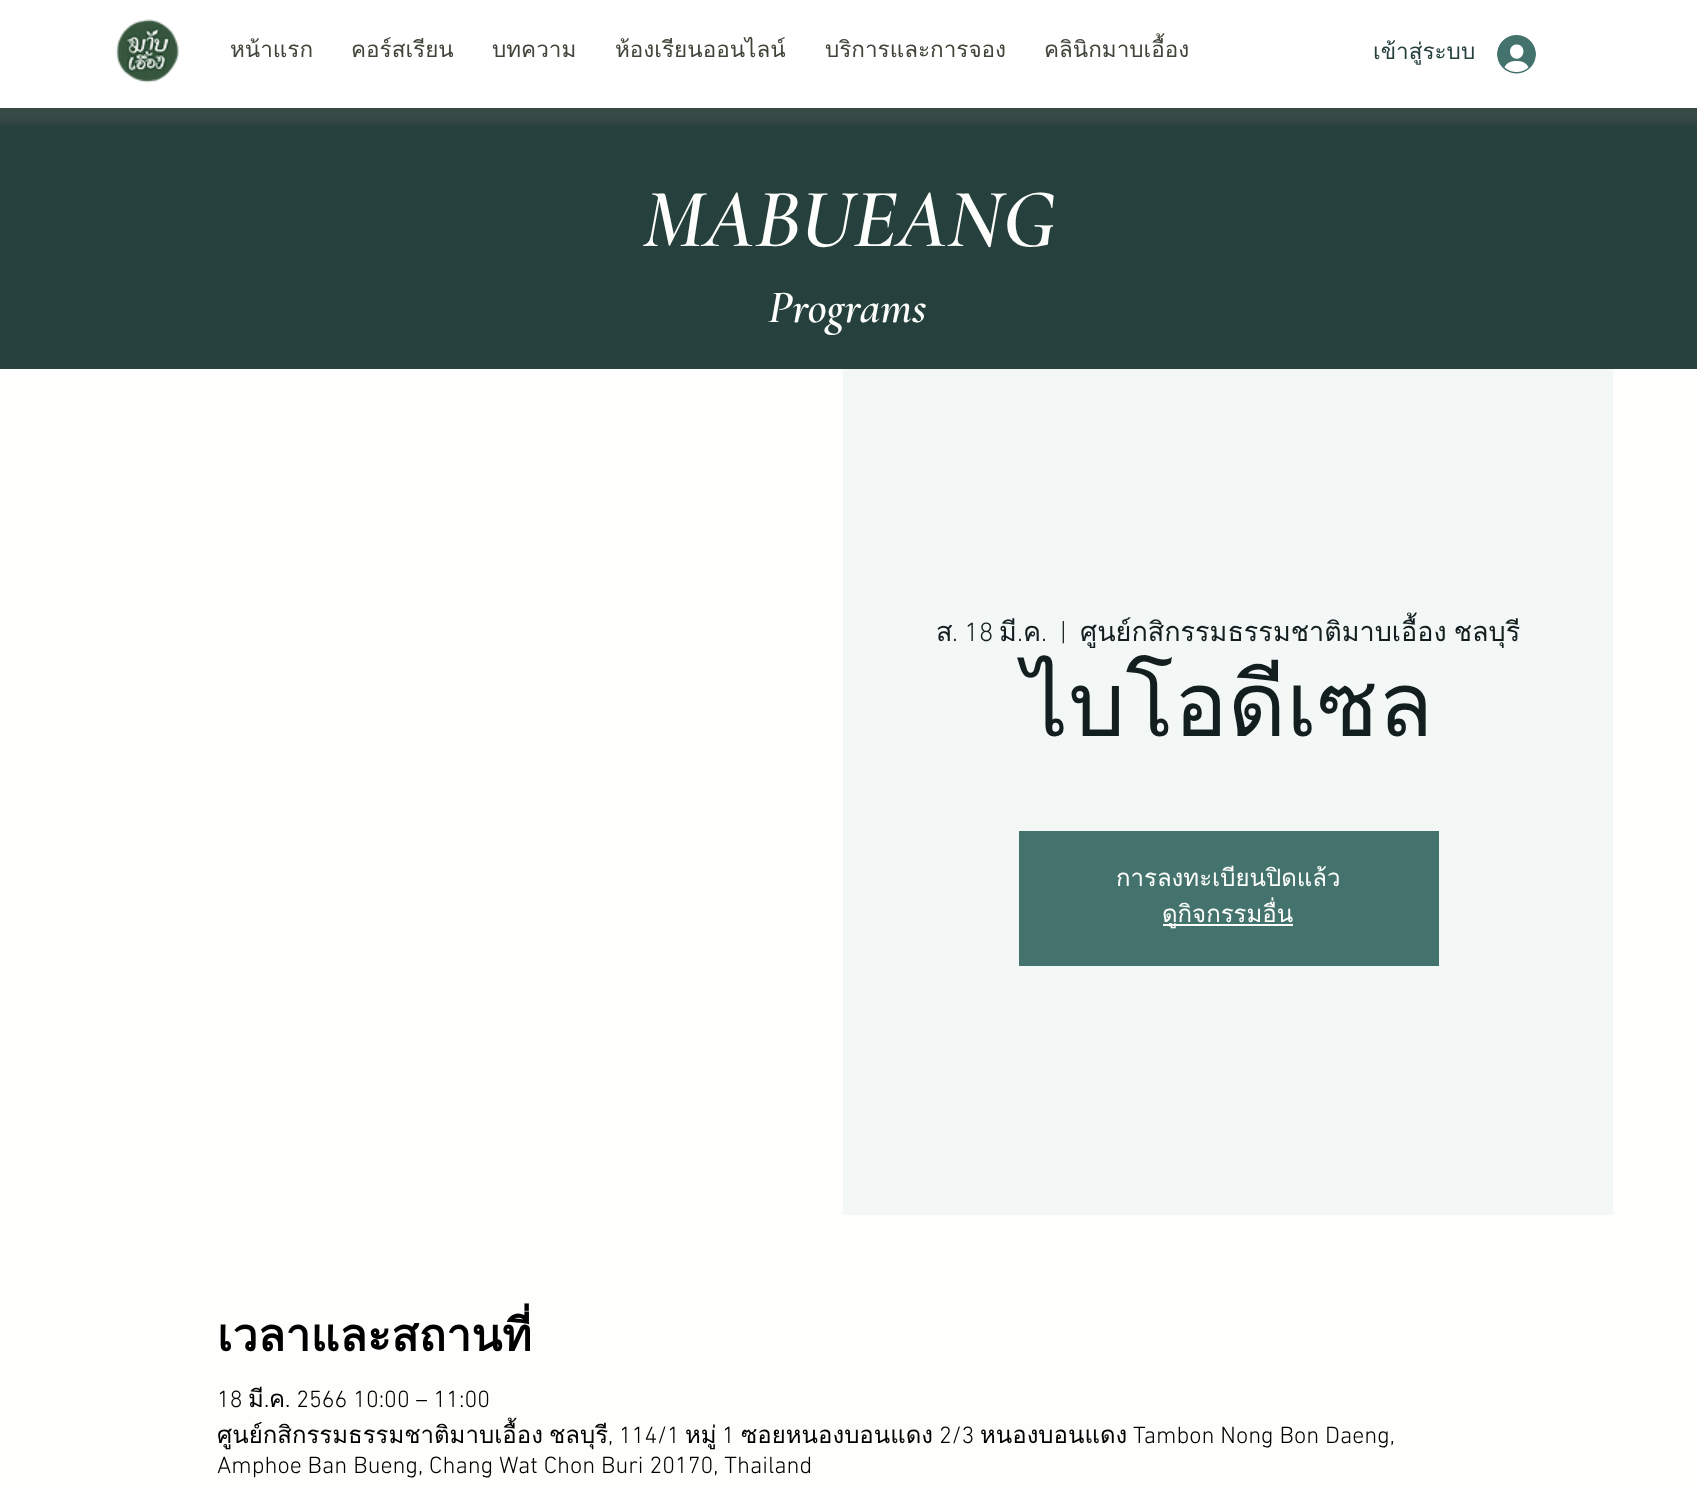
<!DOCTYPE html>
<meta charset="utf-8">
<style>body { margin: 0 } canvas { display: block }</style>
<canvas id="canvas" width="1697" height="1493"></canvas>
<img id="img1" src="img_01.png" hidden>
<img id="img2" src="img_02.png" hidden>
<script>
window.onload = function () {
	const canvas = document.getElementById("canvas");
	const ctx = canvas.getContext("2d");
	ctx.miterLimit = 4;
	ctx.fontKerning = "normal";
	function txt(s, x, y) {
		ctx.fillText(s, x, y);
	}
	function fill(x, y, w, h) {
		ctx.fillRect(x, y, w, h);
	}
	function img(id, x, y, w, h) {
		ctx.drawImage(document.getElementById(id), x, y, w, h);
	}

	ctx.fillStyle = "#FEFFFC";
	fill(0, 0, 1697, 1493);
	ctx.fillStyle = "#26403D";
	fill(0, 108, 1697, 261);
	ctx.fillStyle = "rgba(130, 117, 109, 0.2)";
	ctx.filter = "blur(4.5px)";
	ctx.beginPath();
	ctx.rect(-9, -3, 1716, 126);
	ctx.fill();
	ctx.filter = "none";
	ctx.fillStyle = "#FFFFFF";
	fill(0, 0, 1697, 108);
	img("img1", 116, 19, 63, 64);
	img("img2", 1497, 35, 39, 39);
	ctx.fillStyle = "#F3F8F7";
	fill(843, 369, 770, 846);
	ctx.fillStyle = "#44736E";
	fill(1019, 831, 420, 135);
	ctx.fillStyle = "#FEFFFC";
	fill(1163, 924, 130, 2);
	ctx.font = "22.5px Loma";
	ctx.fillStyle = "#3F4539";
	txt("หน้าแรก", 230, 57);
	txt("คอร์สเรียน", 351, 57);
	txt("บทความ", 492, 57);
	txt("ห้องเรียนออนไลน์", 615, 57);
	txt("บริการและการจอง", 825, 57);
	txt("คลินิกมาบเอื้อง", 1044, 57);
	ctx.fillStyle = "#26403D";
	txt("เข้าสู่ระบบ", 1373, 59);
	ctx.font = "italic 600 84px Cormorant Garamond";
	ctx.fillStyle = "#FEFFFC";
	txt("MABUEANG", 642, 246);
	ctx.font = "italic 600 46.5px Cormorant Garamond";
	txt("Programs", 768, 322);
	ctx.font = "27px Loma";
	ctx.fillStyle = "#131F1E";
	txt("ส", 936, 641);
	ctx.font = "300 27px 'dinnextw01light'";
	txt(". 18", 952, 641);
	ctx.font = "27px Loma";
	txt("มี", 999, 641);
	ctx.font = "300 27px 'dinnextw01light'";
	txt(".", 1017, 641);
	ctx.font = "27px Loma";
	txt("ค", 1023, 641);
	ctx.font = "300 27px 'dinnextw01light'";
	txt(".", 1041, 641);
	txt("|", 1060, 641);
	ctx.wordSpacing = "-2px";
	ctx.font = "27px Loma";
	txt("ศูนย์กสิกรรมธรรมชาติมาบเอื้อง ชลบุรี", 1080, 641);
	ctx.wordSpacing = "0px";
	ctx.font = "90px Loma";
	txt("ไบโอดีเซล", 1023, 736);
	ctx.font = "24px Loma";
	ctx.fillStyle = "#FEFFFC";
	txt("การลงทะเบียนปิดแล้ว", 1116, 886);
	txt("ดูกิจกรรมอื่น", 1162, 922);
	ctx.font = "bold 45px Loma";
	ctx.fillStyle = "#000000";
	txt("เวลาและสถานที่", 217, 1351);
	ctx.font = "300 24px 'dinnextw01light'";
	txt("18", 217, 1407);
	ctx.font = "24px Loma";
	txt("มี", 248, 1407);
	ctx.font = "300 24px 'dinnextw01light'";
	txt(".", 264, 1407);
	ctx.font = "24px Loma";
	txt("ค", 269, 1407);
	ctx.font = "300 24px 'dinnextw01light'";
	txt(". 2566 10:00 – 11:00", 285, 1407);
	ctx.font = "24px Loma";
	txt("ศูนย์กสิกรรมธรรมชาติมาบเอื้อง", 217, 1443);
	txt("ชลบุรี", 549, 1443);
	ctx.font = "300 24px 'dinnextw01light'";
	txt(", 114/1", 608, 1443);
	ctx.font = "24px Loma";
	txt("หมู่", 685, 1443);
	ctx.font = "300 24px 'dinnextw01light'";
	txt("1", 722, 1443);
	ctx.font = "24px Loma";
	txt("ซอยหนองบอนแดง", 741, 1443);
	ctx.font = "300 24px 'dinnextw01light'";
	txt("2/3", 939, 1443);
	ctx.font = "24px Loma";
	txt("หนองบอนแดง", 980, 1443);
	ctx.font = "300 24px 'dinnextw01light'";
	txt("Tambon Nong Bon Daeng,", 1133, 1443);
	txt("Amphoe Ban Bueng, Chang Wat Chon Buri 20170, Thailand", 217, 1473);
};
</script>
